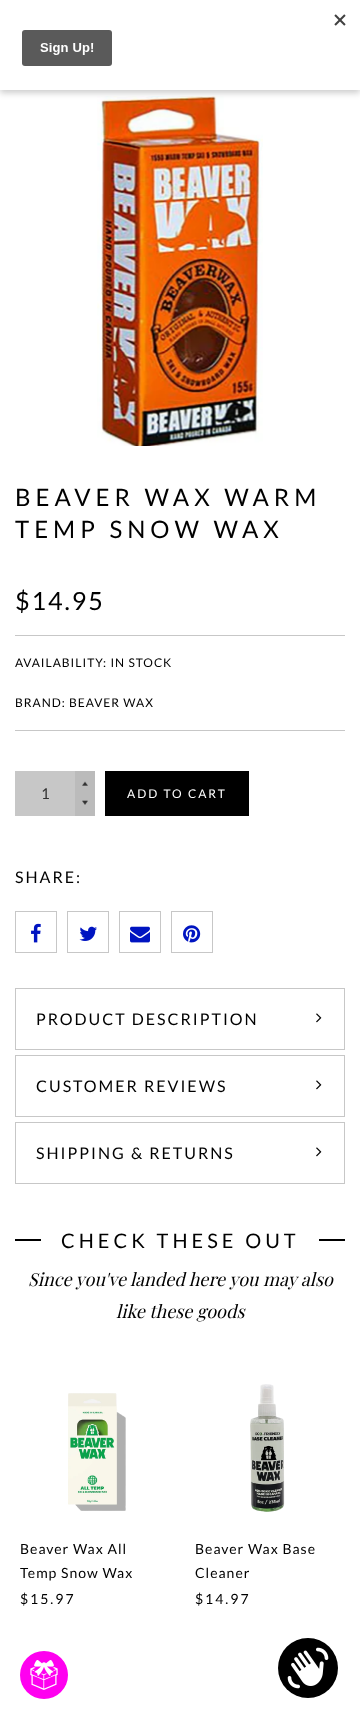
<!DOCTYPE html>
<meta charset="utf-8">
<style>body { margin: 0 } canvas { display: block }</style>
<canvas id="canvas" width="360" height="1719"></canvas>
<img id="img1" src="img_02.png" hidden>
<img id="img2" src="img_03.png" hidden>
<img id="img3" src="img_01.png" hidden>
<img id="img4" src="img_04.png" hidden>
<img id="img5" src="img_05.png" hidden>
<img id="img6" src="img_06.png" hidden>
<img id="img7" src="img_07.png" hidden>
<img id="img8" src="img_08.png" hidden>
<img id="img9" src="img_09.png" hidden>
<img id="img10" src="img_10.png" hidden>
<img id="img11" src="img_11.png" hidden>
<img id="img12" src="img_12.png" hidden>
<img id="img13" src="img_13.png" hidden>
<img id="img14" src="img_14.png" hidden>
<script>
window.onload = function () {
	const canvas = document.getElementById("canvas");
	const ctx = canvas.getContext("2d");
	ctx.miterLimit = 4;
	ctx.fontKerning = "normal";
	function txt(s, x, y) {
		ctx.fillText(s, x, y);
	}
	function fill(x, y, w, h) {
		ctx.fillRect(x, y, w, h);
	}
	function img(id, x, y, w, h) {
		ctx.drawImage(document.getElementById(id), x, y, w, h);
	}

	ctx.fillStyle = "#FFFFFF";
	fill(0, 0, 360, 1719);
	img("img1", 97, 96, 166, 350);
	img("img2", 102, 97, 157, 349);
	ctx.fillStyle = "rgba(0, 0, 0, 0.2)";
	ctx.filter = "blur(3px)";
	ctx.beginPath();
	ctx.rect(0, 3, 360, 90);
	ctx.fill();
	ctx.filter = "none";
	ctx.fillStyle = "#FFFFFF";
	fill(0, 0, 360, 90);
	img("img3", 22, 14, 324, 52);
	ctx.fillStyle = "#C7C7C7";
	fill(15, 635, 330, 1);
	fill(15, 730, 330, 1);
	ctx.fillStyle = "#BBBBBB";
	fill(75, 771, 20, 45);
	img("img4", 82, 800, 6, 5);
	img("img5", 82, 781, 6, 5);
	ctx.fillStyle = "#C7C7C7";
	fill(15, 771, 60, 45);
	ctx.fillStyle = "#000000";
	fill(105, 771, 144, 45);
	ctx.strokeStyle = "#C7C7C7";
	ctx.strokeRect(15.5, 911.5, 41, 41);
	img("img6", 31, 923, 10, 20);
	ctx.strokeRect(67.5, 911.5, 41, 41);
	img("img7", 79, 926, 18, 15);
	ctx.strokeRect(119.5, 911.5, 41, 41);
	img("img8", 130, 926, 20, 17);
	ctx.strokeRect(171.5, 911.5, 41, 41);
	img("img9", 183, 925, 18, 18);
	ctx.strokeRect(15.5, 988.5, 329, 61);
	img("img10", 316, 1013, 6, 10);
	ctx.strokeRect(15.5, 1055.5, 329, 61);
	img("img10", 316, 1080, 6, 10);
	ctx.strokeRect(15.5, 1122.5, 329, 61);
	img("img10", 316, 1147, 6, 10);
	fill(15, 1239, 330, 2);
	ctx.fillStyle = "#FFFFFF";
	fill(41, 1239, 278, 2);
	img("img11", 68, 1393, 58, 118);
	img("img12", 250, 1384, 35, 128);
	ctx.fillStyle = "#FF00F0";
	ctx.beginPath();
	ctx.arc(44, 1675, 24, 0, Math.PI * 2);
	ctx.fill();
	img("img13", 30, 1660, 28, 30);
	ctx.fillStyle = "#000000";
	ctx.beginPath();
	ctx.arc(308, 1668, 30, 0, Math.PI * 2);
	ctx.fill();
	img("img14", 287, 1647, 42, 42);
	ctx.letterSpacing = "5px";
	ctx.font = "24px Lato";
	txt("BEAVER WAX WARM", 15, 506);
	txt("TEMP SNOW WAX", 15, 538);
	ctx.letterSpacing = "2px";
	ctx.font = "25px Lato";
	txt("$14.95", 15, 610);
	ctx.letterSpacing = "1px";
	ctx.font = "12px Lato";
	txt("AVAILABILITY: IN STOCK", 15, 667);
	txt("BRAND: BEAVER WAX", 15, 707);
	ctx.letterSpacing = "0px";
	ctx.font = "15px Lato";
	ctx.fillStyle = "#2F2F2F";
	txt("1", 41, 799);
	ctx.letterSpacing = "2px";
	ctx.font = "12px Lato";
	ctx.fillStyle = "#FFFFFF";
	txt("ADD TO CART", 127, 798);
	ctx.font = "16px Lato";
	ctx.fillStyle = "#000000";
	txt("SHARE:", 15, 883);
	txt("PRODUCT DESCRIPTION", 36, 1025);
	txt("CUSTOMER REVIEWS", 36, 1092);
	txt("SHIPPING & RETURNS", 36, 1159);
	ctx.letterSpacing = "4px";
	ctx.font = "20px Lato";
	txt("CHECK THESE OUT", 61, 1248);
	ctx.letterSpacing = "0px";
	ctx.font = "italic 18px Playfair Display";
	txt("Since you've landed here you may also", 28, 1286);
	txt("like these goods", 116, 1318);
	ctx.letterSpacing = "1px";
	ctx.font = "14px Lato";
	txt("Beaver Wax All", 20, 1554);
	txt("Temp Snow Wax", 20, 1578);
	ctx.letterSpacing = "2px";
	txt("$15.97", 20, 1604);
	ctx.letterSpacing = "1px";
	txt("Beaver Wax Base", 195, 1554);
	txt("Cleaner", 195, 1578);
	ctx.letterSpacing = "2px";
	txt("$14.97", 195, 1604);
};
</script>
